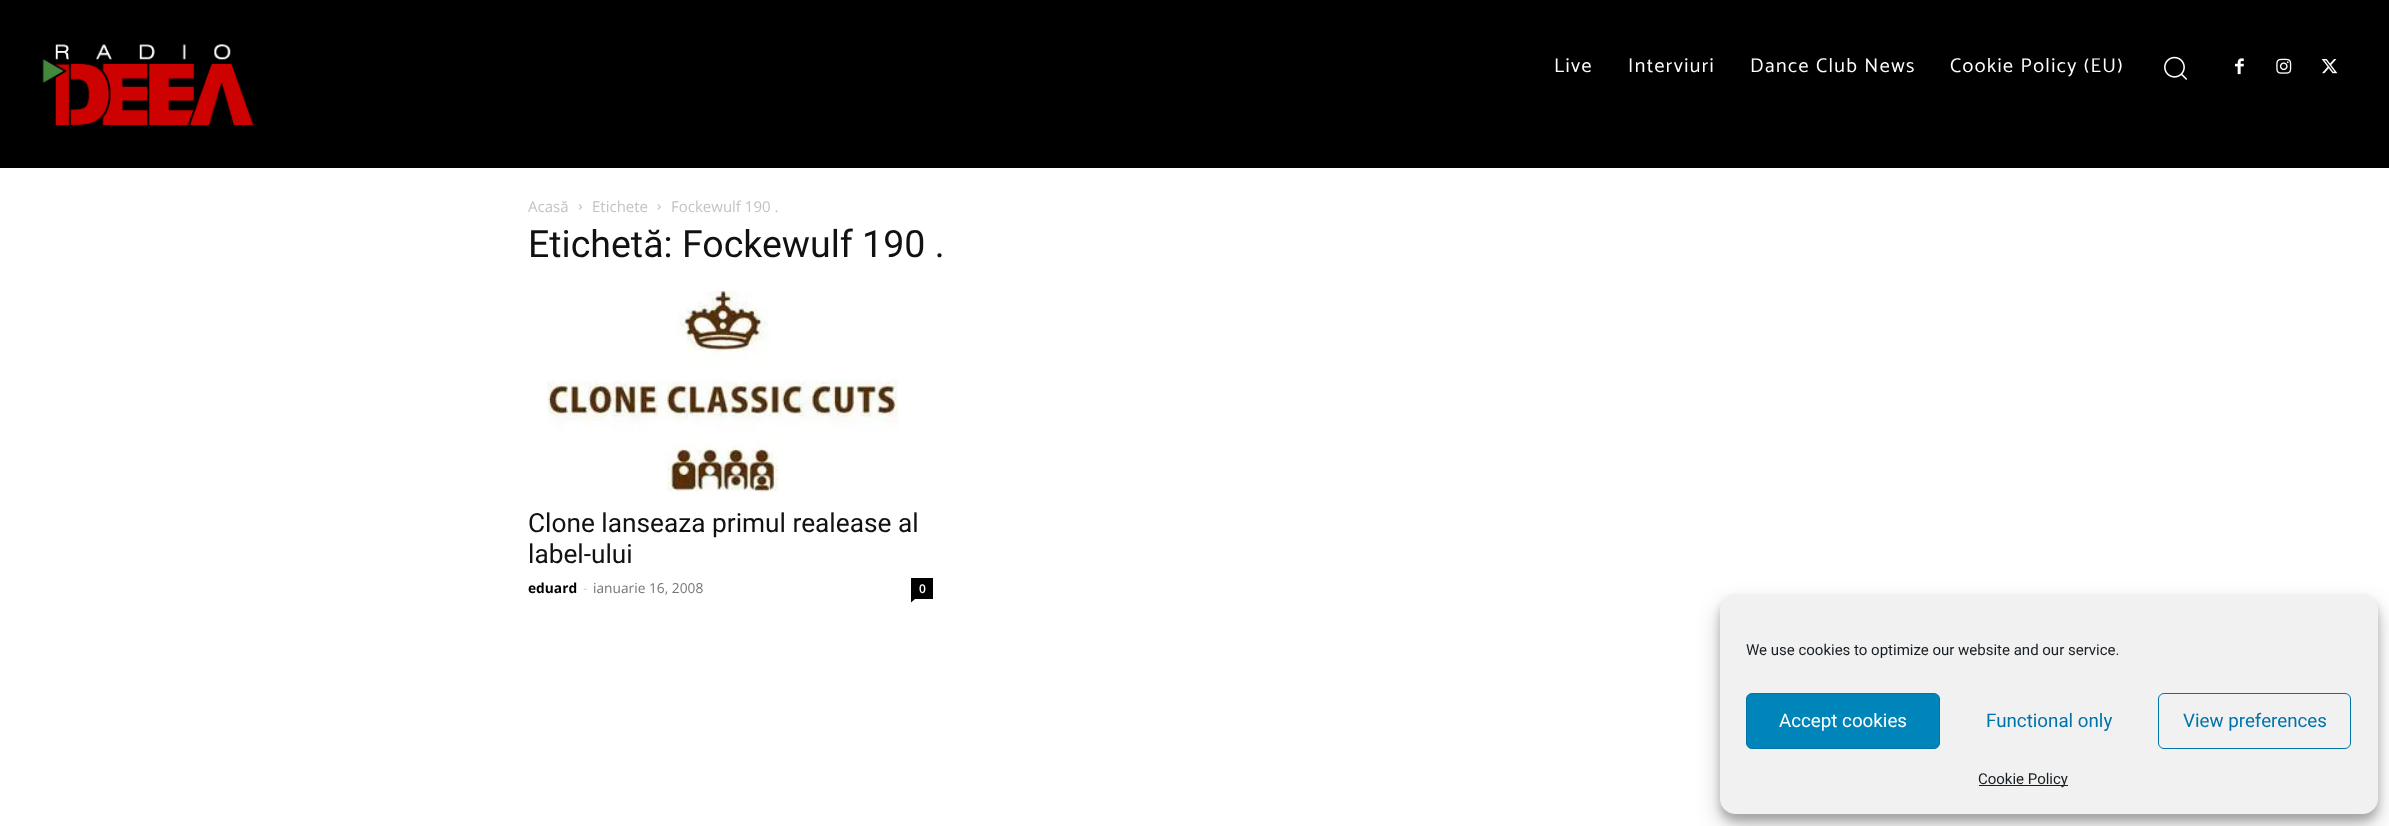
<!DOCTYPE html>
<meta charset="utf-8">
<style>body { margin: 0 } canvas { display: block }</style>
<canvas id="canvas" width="2389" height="826"></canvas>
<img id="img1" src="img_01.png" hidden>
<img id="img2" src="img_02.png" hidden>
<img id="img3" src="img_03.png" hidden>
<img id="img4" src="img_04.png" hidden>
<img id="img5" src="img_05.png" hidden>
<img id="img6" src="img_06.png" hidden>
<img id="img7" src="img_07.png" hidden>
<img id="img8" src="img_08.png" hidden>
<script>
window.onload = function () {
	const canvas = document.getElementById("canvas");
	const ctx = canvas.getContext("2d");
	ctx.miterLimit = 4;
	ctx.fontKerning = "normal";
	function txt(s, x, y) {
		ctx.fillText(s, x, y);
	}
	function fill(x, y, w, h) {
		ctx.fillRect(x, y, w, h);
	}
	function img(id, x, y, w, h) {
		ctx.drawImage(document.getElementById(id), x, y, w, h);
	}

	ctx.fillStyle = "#FFFFFF";
	fill(0, 0, 2389, 826);
	ctx.fillStyle = "#000000";
	fill(0, 0, 2389, 168);
	img("img1", 42, 44, 212, 81);
	img("img2", 2164, 56, 23, 24);
	img("img3", 2235, 58, 9, 17);
	img("img4", 2276, 58, 16, 16);
	img("img5", 2321, 59, 17, 15);
	img("img6", 578, 204, 4, 6);
	img("img7", 657, 204, 4, 6);
	img("img8", 547, 291, 352, 201);
	fill(911, 578, 22, 21);
	ctx.beginPath();
	ctx.moveTo(911, 599);
	ctx.lineTo(915, 599);
	ctx.lineTo(911, 602.5);
	ctx.closePath();
	ctx.fill();
	ctx.fillStyle = "rgba(0, 0, 0, 0.23)";
	ctx.filter = "blur(4px)";
	ctx.beginPath();
	ctx.roundRect(1720, 601, 658, 220, 15);
	ctx.fill();
	ctx.filter = "none";
	ctx.fillStyle = "rgba(0, 0, 0, 0.19)";
	ctx.filter = "blur(12.5px)";
	ctx.beginPath();
	ctx.roundRect(1720, 606, 658, 220, 15);
	ctx.fill();
	ctx.filter = "none";
	ctx.fillStyle = "#F1F1F1";
	ctx.beginPath();
	ctx.roundRect(1720.5, 594.5, 657, 219, 14.5);
	ctx.fill();
	ctx.strokeStyle = "#F1F1F1";
	ctx.stroke();
	ctx.fillStyle = "#0085BA";
	ctx.beginPath();
	ctx.roundRect(1746.5, 693.5, 193, 55, 5.5);
	ctx.fill();
	ctx.strokeStyle = "#0073AA";
	ctx.stroke();
	ctx.beginPath();
	ctx.roundRect(2158.5, 693.5, 192, 55, 5.5);
	ctx.stroke();
	ctx.fillStyle = "#191E23";
	fill(1979, 785, 89, 1);
	ctx.letterSpacing = "1.4px";
	ctx.font = "20px Catamaran";
	ctx.fillStyle = "#FFFFFF";
	txt("Live", 1554, 72);
	txt("Interviuri", 1628, 72);
	txt("Dance Club News", 1750, 72);
	txt("Cookie Policy (EU)", 1950, 72);
	ctx.letterSpacing = "0px";
	ctx.font = "15px Open Sans";
	ctx.fillStyle = "#C3C3C3";
	txt("Acasă", 528, 212);
	txt("Etichete", 592, 212);
	txt("Fockewulf 190 .", 671, 212);
	ctx.font = "37.5px Roboto";
	ctx.fillStyle = "#111111";
	txt("Etichetă: Fockewulf 190 .", 528, 257);
	ctx.font = "26.25px Roboto";
	txt("Clone lanseaza primul realease al", 528, 532);
	txt("label-ului", 528, 563);
	ctx.font = "bold 13.75px Open Sans";
	ctx.fillStyle = "#000000";
	txt("eduard", 528, 593);
	ctx.font = "13.75px Open Sans";
	ctx.fillStyle = "#CCCCCC";
	txt("-", 583, 593);
	ctx.fillStyle = "#767676";
	txt("ianuarie 16, 2008", 593, 593);
	ctx.font = "600 12px Open Sans";
	ctx.fillStyle = "#FFFFFF";
	txt("0", 919, 593);
	ctx.font = "15px Roboto";
	ctx.fillStyle = "#191E23";
	txt("We use cookies to optimize our website and our service.", 1746, 655);
	ctx.font = "18.75px Roboto";
	ctx.fillStyle = "#FFFFFF";
	txt("Accept cookies", 1779, 727);
	ctx.fillStyle = "#0073AA";
	txt("Functional only", 1986, 727);
	txt("View preferences", 2183, 727);
	ctx.font = "15px Roboto";
	ctx.fillStyle = "#191E23";
	txt("Cookie Policy", 1978, 784);
};
</script>
